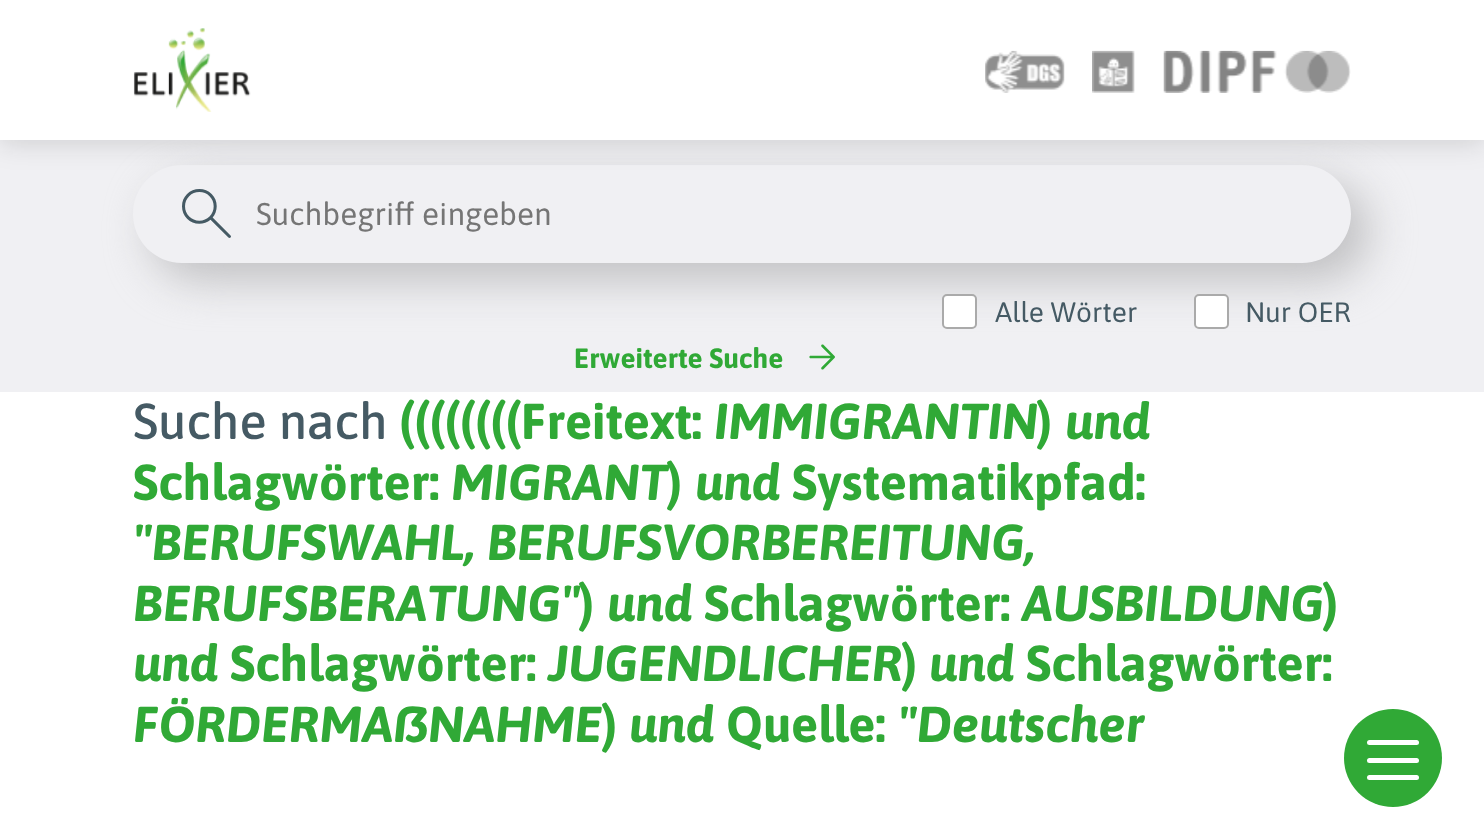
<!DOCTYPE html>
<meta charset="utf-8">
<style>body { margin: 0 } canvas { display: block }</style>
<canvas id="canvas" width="1484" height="838"></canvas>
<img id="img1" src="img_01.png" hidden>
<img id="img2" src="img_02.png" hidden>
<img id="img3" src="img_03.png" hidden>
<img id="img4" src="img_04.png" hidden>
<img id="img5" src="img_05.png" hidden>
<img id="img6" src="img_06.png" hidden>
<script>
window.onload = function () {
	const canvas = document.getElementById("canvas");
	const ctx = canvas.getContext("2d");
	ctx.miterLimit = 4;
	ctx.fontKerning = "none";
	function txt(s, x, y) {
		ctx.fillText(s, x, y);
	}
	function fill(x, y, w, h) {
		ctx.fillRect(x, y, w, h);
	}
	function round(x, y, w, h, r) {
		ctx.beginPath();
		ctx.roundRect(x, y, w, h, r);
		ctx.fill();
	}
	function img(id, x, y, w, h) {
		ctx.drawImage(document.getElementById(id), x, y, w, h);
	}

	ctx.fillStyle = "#FFFFFF";
	fill(0, 0, 1484, 838);
	ctx.fillStyle = "#F0F0F3";
	fill(0, 140, 1484, 252);
	ctx.fillStyle = "rgba(18, 18, 18, 0.16)";
	ctx.filter = "blur(14px)";
	ctx.beginPath();
	ctx.rect(0, 2, 1484, 140);
	ctx.fill();
	ctx.filter = "none";
	ctx.save();
	ctx.beginPath();
	ctx.moveTo(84, 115);
	ctx.lineTo(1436, 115);
	ctx.lineTo(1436, 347);
	ctx.lineTo(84, 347);
	ctx.closePath();
	ctx.moveTo(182, 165);
	ctx.lineTo(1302, 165);
	ctx.bezierCurveTo(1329, 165, 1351, 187, 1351, 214);
	ctx.bezierCurveTo(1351, 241, 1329, 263, 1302, 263);
	ctx.lineTo(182, 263);
	ctx.bezierCurveTo(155, 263, 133, 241, 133, 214);
	ctx.bezierCurveTo(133, 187, 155, 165, 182, 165);
	ctx.closePath();
	ctx.clip("evenodd");
	ctx.fillStyle = "#C0C0C2";
	ctx.filter = "blur(22px)";
	ctx.beginPath();
	ctx.roundRect(151, 182, 1218, 98, 49);
	ctx.fill();
	ctx.filter = "none";
	ctx.restore();
	ctx.fillStyle = "#FFFFFF";
	fill(0, 0, 1484, 140);
	img("img1", 133, 28, 118, 84);
	img("img2", 985, 50, 80, 43);
	img("img3", 1092, 50, 43, 43);
	img("img4", 1163, 50, 188, 43);
	img("img5", 182, 189, 49, 49);
	ctx.beginPath();
	ctx.roundRect(943, 295, 33, 33, 4);
	ctx.fill();
	ctx.strokeStyle = "#AAAAAA";
	ctx.lineWidth = 2;
	ctx.stroke();
	ctx.beginPath();
	ctx.roundRect(1195, 295, 33, 33, 4);
	ctx.fill();
	ctx.stroke();
	img("img6", 809, 344, 26, 26);
	ctx.fillStyle = "#30A936";
	ctx.beginPath();
	ctx.arc(1393, 758, 49, 0, Math.PI * 2);
	ctx.fill();
	ctx.fillStyle = "#FFFFFF";
	round(1367, 758, 52, 5, 2.5);
	round(1367, 740, 52, 5, 2.5);
	round(1367, 775, 52, 5, 2.5);
	ctx.font = "31.5px Asap";
	ctx.fillStyle = "#757575";
	txt("Suchbegriff eingeben", 256, 225);
	ctx.font = "28px Asap";
	ctx.fillStyle = "#455A64";
	txt("Alle Wörter", 995, 322);
	txt("Nur OER", 1245, 322);
	ctx.font = "bold 28px Asap";
	ctx.fillStyle = "#30A936";
	txt("Erweiterte Suche", 574, 368);
	ctx.font = "500 50.5px Asap";
	ctx.fillStyle = "#455A64";
	txt("Suche nach", 133, 439);
	ctx.font = "900 50.5px Asap";
	ctx.fillStyle = "#30A936";
	txt("((((((((", 399, 439);
	ctx.font = "bold 50.5px Asap";
	txt("Freitext:", 521, 439);
	ctx.font = "italic bold 50.5px Asap";
	txt("IMMIGRANTIN", 714, 439);
	ctx.font = "900 50.5px Asap";
	txt(")", 1037, 439);
	ctx.font = "italic bold 50.5px Asap";
	txt("und", 1065, 439);
	ctx.font = "bold 50.5px Asap";
	txt("Schlagwörter:", 133, 500);
	ctx.font = "italic bold 50.5px Asap";
	txt("MIGRANT", 451, 500);
	ctx.font = "900 50.5px Asap";
	txt(")", 667, 500);
	ctx.font = "italic bold 50.5px Asap";
	txt("und", 695, 500);
	ctx.font = "bold 50.5px Asap";
	txt("Systematikpfad:", 792, 500);
	ctx.font = "italic bold 50.5px Asap";
	txt("\"BERUFSWAHL, BERUFSVORBEREITUNG,", 133, 560);
	txt("BERUFSBERATUNG\"", 133, 621);
	ctx.font = "900 50.5px Asap";
	txt(")", 579, 621);
	ctx.font = "italic bold 50.5px Asap";
	txt("und", 607, 621);
	ctx.font = "bold 50.5px Asap";
	txt("Schlagwörter:", 704, 621);
	ctx.font = "italic bold 50.5px Asap";
	txt("AUSBILDUNG", 1022, 621);
	ctx.font = "900 50.5px Asap";
	txt(")", 1323, 621);
	ctx.font = "italic bold 50.5px Asap";
	txt("und", 133, 681);
	ctx.font = "bold 50.5px Asap";
	txt("Schlagwörter:", 230, 681);
	ctx.font = "italic bold 50.5px Asap";
	txt("JUGENDLICHER", 548, 681);
	ctx.font = "900 50.5px Asap";
	txt(")", 902, 681);
	ctx.font = "italic bold 50.5px Asap";
	txt("und", 929, 681);
	ctx.font = "bold 50.5px Asap";
	txt("Schlagwörter:", 1026, 681);
	ctx.font = "italic bold 50.5px Asap";
	txt("FÖRDERMAßNAHME", 133, 742);
	ctx.font = "900 50.5px Asap";
	txt(")", 602, 742);
	ctx.font = "italic bold 50.5px Asap";
	txt("und", 629, 742);
	ctx.font = "bold 50.5px Asap";
	txt("Quelle:", 726, 742);
	ctx.font = "italic bold 50.5px Asap";
	txt("\"Deutscher", 898, 742);
};
</script>
